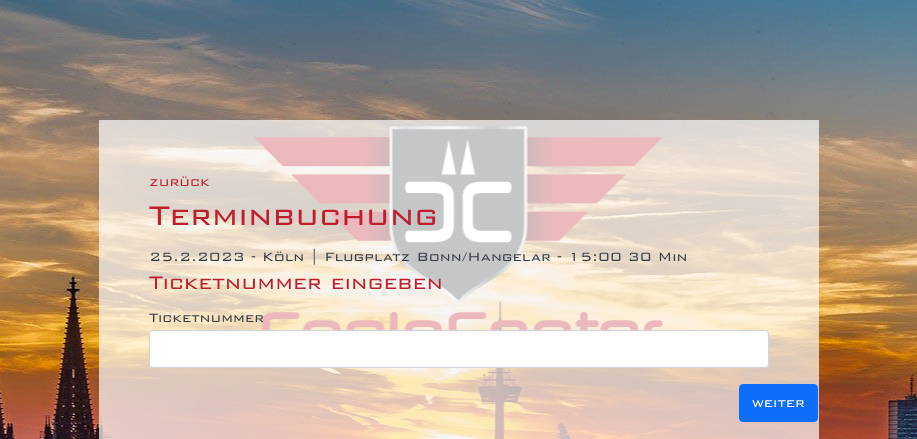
<!DOCTYPE html>
<meta charset="utf-8">
<style>body { margin: 0 } canvas { display: block }</style>
<canvas id="canvas" width="917" height="439"></canvas>
<img id="img1" src="img_01.png" hidden>
<script>
window.onload = function () {
	const canvas = document.getElementById("canvas");
	const ctx = canvas.getContext("2d");
	ctx.miterLimit = 4;
	ctx.fontKerning = "normal";
	function txt(s, x, y) {
		ctx.fillText(s, x, y);
	}
	function fill(x, y, w, h) {
		ctx.fillRect(x, y, w, h);
	}
	function img(id, x, y, w, h) {
		ctx.drawImage(document.getElementById(id), x, y, w, h);
	}

	ctx.fillStyle = "#FFFFFF";
	fill(0, 0, 917, 439);
	img("img1", 0, 0, 917, 439);
	ctx.fillStyle = "rgba(255, 255, 255, 0.7)";
	fill(99, 120, 720, 319);
	ctx.fillStyle = "#FFFFFF";
	ctx.beginPath();
	ctx.roundRect(149.5, 330.5, 619, 37, 3.5);
	ctx.fill();
	ctx.strokeStyle = "#CED4DA";
	ctx.stroke();
	ctx.fillStyle = "#0D6EFD";
	ctx.beginPath();
	ctx.roundRect(739.5, 384.5, 78, 37, 3.5);
	ctx.fill();
	ctx.strokeStyle = "#0D6EFD";
	ctx.stroke();
	ctx.font = "300 16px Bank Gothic";
	ctx.fillStyle = "#BE1E2D";
	txt("zurück", 149, 186);
	ctx.font = "300 35.75px Bank Gothic";
	txt("Terminbuchung", 149, 225);
	ctx.font = "300 16px Bank Gothic";
	ctx.fillStyle = "#353E47";
	txt("25.2.2023 - Köln | Flugplatz Bonn/Hangelar - 15:00 30 Min", 149, 261);
	ctx.font = "300 24px Bank Gothic";
	ctx.fillStyle = "#BE1E2D";
	txt("Ticketnummer eingeben", 149, 289);
	ctx.font = "300 16px Bank Gothic";
	ctx.fillStyle = "#353E47";
	txt("Ticketnummer", 149, 322);
	ctx.fillStyle = "#FFFFFF";
	txt("weiter", 752, 407);
};
</script>
